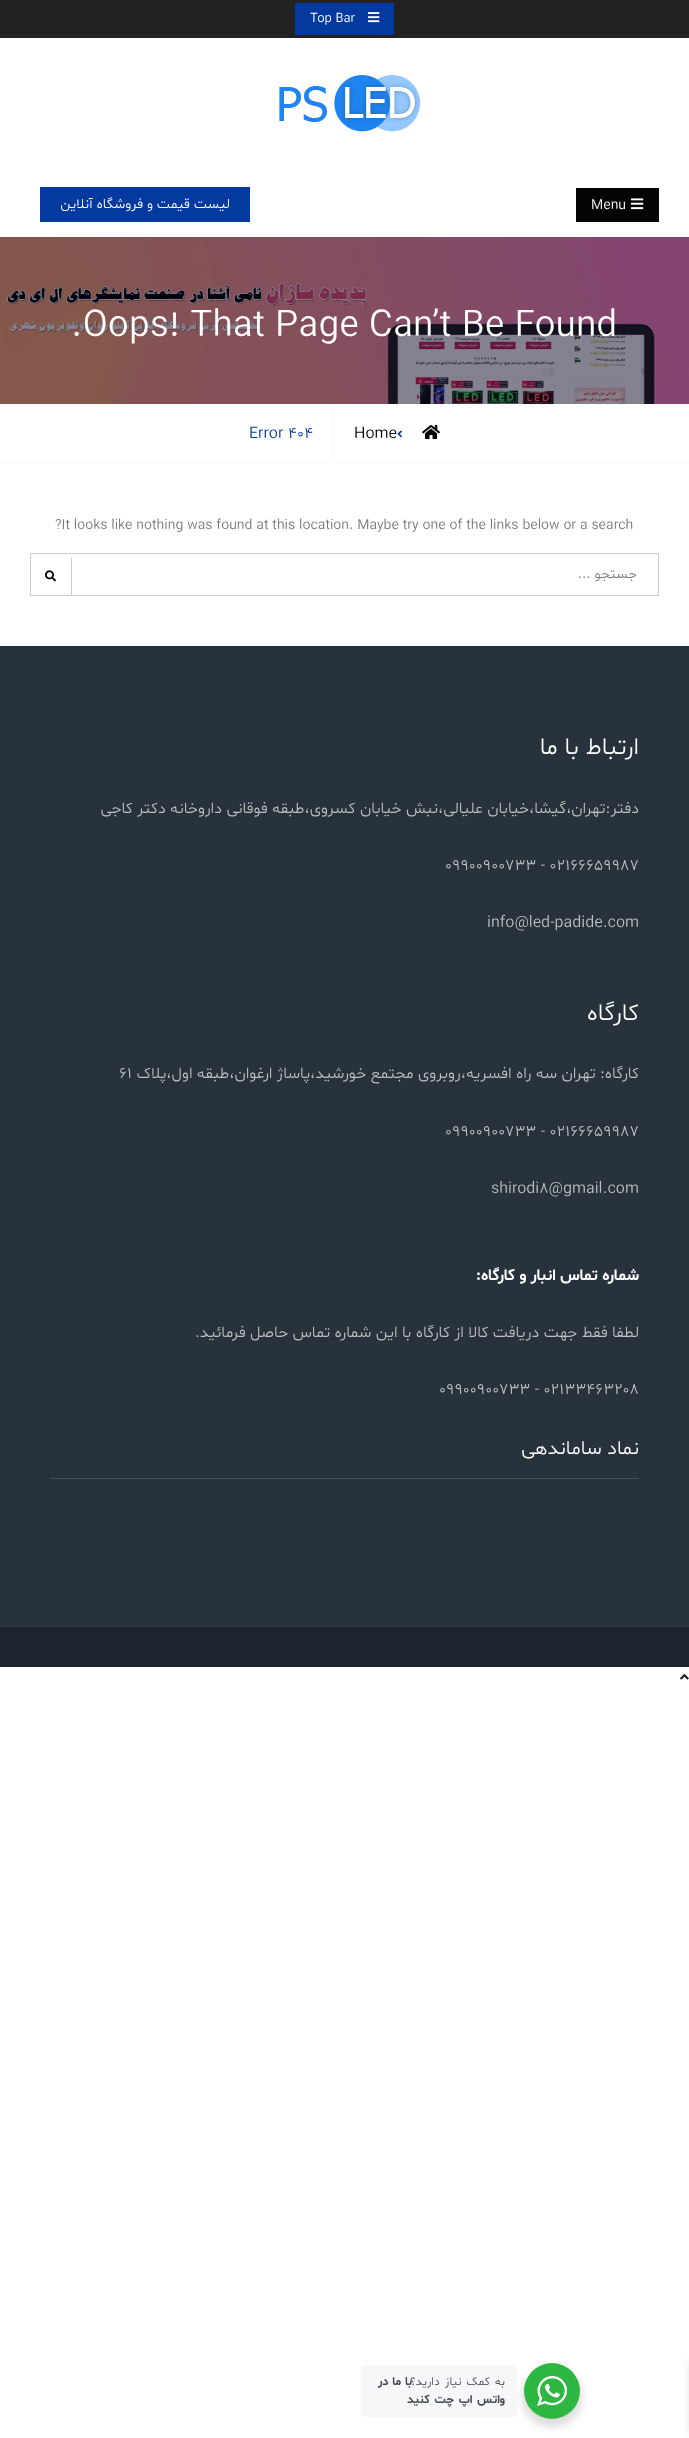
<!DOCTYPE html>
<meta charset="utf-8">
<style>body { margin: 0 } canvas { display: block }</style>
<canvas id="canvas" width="689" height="2438"></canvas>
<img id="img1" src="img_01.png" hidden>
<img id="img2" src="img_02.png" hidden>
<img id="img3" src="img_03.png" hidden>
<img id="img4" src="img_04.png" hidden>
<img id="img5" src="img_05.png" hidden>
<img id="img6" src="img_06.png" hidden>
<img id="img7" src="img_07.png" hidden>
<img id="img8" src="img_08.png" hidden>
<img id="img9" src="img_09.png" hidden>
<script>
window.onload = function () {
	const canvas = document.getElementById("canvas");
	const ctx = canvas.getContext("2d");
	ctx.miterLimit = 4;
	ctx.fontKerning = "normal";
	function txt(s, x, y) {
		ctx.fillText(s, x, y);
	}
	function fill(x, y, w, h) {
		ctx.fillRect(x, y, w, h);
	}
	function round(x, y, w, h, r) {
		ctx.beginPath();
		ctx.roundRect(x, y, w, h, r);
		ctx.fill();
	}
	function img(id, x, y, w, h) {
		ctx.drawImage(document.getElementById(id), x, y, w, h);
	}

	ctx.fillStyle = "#FFFFFF";
	fill(0, 0, 689, 2438);
	ctx.fillStyle = "#222222";
	fill(0, 0, 689, 38);
	ctx.fillStyle = "#0439A0";
	fill(295, 3, 99, 32);
	img("img1", 368, 12, 12, 11);
	img("img2", 279, 75, 141, 57);
	ctx.fillStyle = "#040404";
	fill(576, 188, 83, 34);
	img("img3", 631, 198, 13, 12);
	ctx.fillStyle = "#0439A0";
	fill(40, 187, 210, 35);
	img("img4", 0, 237, 689, 167);
	ctx.fillStyle = "#F9F9F9";
	fill(0, 463, 689, 1);
	ctx.fillStyle = "#F8F8F8";
	fill(333, 404, 1, 59);
	img("img5", 397, 430, 5, 8);
	img("img6", 422, 425, 18, 14);
	ctx.strokeStyle = "#CCCCCC";
	ctx.strokeRect(30.5, 553.5, 628, 42);
	ctx.fillStyle = "#CCCCCC";
	fill(71, 558, 1, 37);
	img("img7", 45, 570, 11, 12);
	ctx.fillStyle = "#28323C";
	fill(0, 646, 689, 981);
	ctx.fillStyle = "#464F57";
	fill(50, 1478, 589, 1);
	ctx.fillStyle = "#1C252E";
	fill(0, 1627, 689, 40);
	img("img8", 680, 1674, 9, 6);
	ctx.fillStyle = "rgba(0, 0, 0, 0.1)";
	ctx.filter = "blur(5px)";
	ctx.beginPath();
	ctx.rect(689, 2362, 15, 71);
	ctx.fill();
	ctx.filter = "none";
	ctx.fillStyle = "rgba(0, 0, 0, 0.14)";
	ctx.filter = "blur(4px)";
	ctx.beginPath();
	ctx.roundRect(522, 2367, 60, 60, 30);
	ctx.fill();
	ctx.filter = "none";
	ctx.fillStyle = "#2DB742";
	ctx.beginPath();
	ctx.arc(552, 2391, 28, 0, Math.PI * 2);
	ctx.fill();
	img("img9", 537, 2376, 30, 30);
	ctx.fillStyle = "#F5F7F9";
	round(361, 2365, 156, 52, 4);
	ctx.font = "300 13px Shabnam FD";
	ctx.fillStyle = "#FFFFFF";
	txt("Top Bar", 310, 22);
	ctx.font = "300 14px Shabnam FD";
	txt("Menu", 591, 209);
	ctx.direction = "rtl";
	txt("لیست قیمت و فروشگاه آنلاین", 230, 208);
	ctx.direction = "ltr";
	ctx.font = "300 37px Shabnam FD";
	txt(".Oops! That Page Can’t Be Found", 71, 336);
	ctx.font = "300 16px Shabnam FD";
	ctx.fillStyle = "#020202";
	txt("Home", 354, 438);
	ctx.fillStyle = "#0439A0";
	txt("Error 404", 249, 438);
	ctx.font = "300 14px Shabnam FD";
	ctx.fillStyle = "#797978";
	txt("?It looks like nothing was found at this location. Maybe try one of the links below or a search", 55, 529);
	ctx.direction = "rtl";
	txt("جستجو ...", 637, 578);
	ctx.font = "300 24.5px Shabnam FD";
	ctx.fillStyle = "#FFFFFF";
	txt("ارتباط با ما", 639, 754);
	ctx.font = "300 16px Shabnam FD";
	ctx.fillStyle = "#BFBFBF";
	txt("دفتر:تهران،گیشا،خیابان علیالی،نبش خیابان کسروی،طبقه فوقانی داروخانه دکتر کاجی", 639, 813);
	ctx.direction = "ltr";
	txt("09900900733 - 02166659987", 445, 870);
	txt("info@led-padide.com", 487, 927);
	ctx.direction = "rtl";
	ctx.font = "300 24.5px Shabnam FD";
	ctx.fillStyle = "#FFFFFF";
	txt("کارگاه", 639, 1020);
	ctx.font = "300 16px Shabnam FD";
	ctx.fillStyle = "#BFBFBF";
	txt("کارگاه: تهران سه راه افسریه،روبروی مجتمع خورشید،پاساژ ارغوان،طبقه اول،پلاک", 639, 1078);
	ctx.direction = "ltr";
	txt("61", 119, 1078);
	txt("09900900733 - 02166659987", 445, 1136);
	txt("shirodi8@gmail.com", 491, 1193);
	ctx.direction = "rtl";
	ctx.font = "bold 16px Shabnam FD";
	ctx.fillStyle = "#FFFFFF";
	txt("شماره تماس انبار و کارگاه:", 639, 1280);
	ctx.font = "300 16px Shabnam FD";
	ctx.fillStyle = "#BFBFBF";
	txt("لطفا فقط جهت دریافت کالا از کارگاه با این شماره تماس حاصل فرمائید.", 639, 1337);
	ctx.direction = "ltr";
	txt("09900900733 - 02133463208", 439, 1394);
	ctx.direction = "rtl";
	ctx.font = "300 20px Shabnam FD";
	ctx.fillStyle = "#FFFFFF";
	txt("نماد ساماندهی", 639, 1454);
	ctx.letterSpacing = "-0.4px";
	ctx.wordSpacing = "2px";
	ctx.font = "300 12px Shabnam FD";
	ctx.fillStyle = "#43474E";
	txt("به کمک نیاز دارید؟", 505, 2385);
	ctx.wordSpacing = "1px";
	ctx.font = "bold 12px Shabnam FD";
	txt("با ما در", 412, 2385);
	ctx.wordSpacing = "2px";
	txt("واتس اپ چت کنید", 505, 2403);
};
</script>
